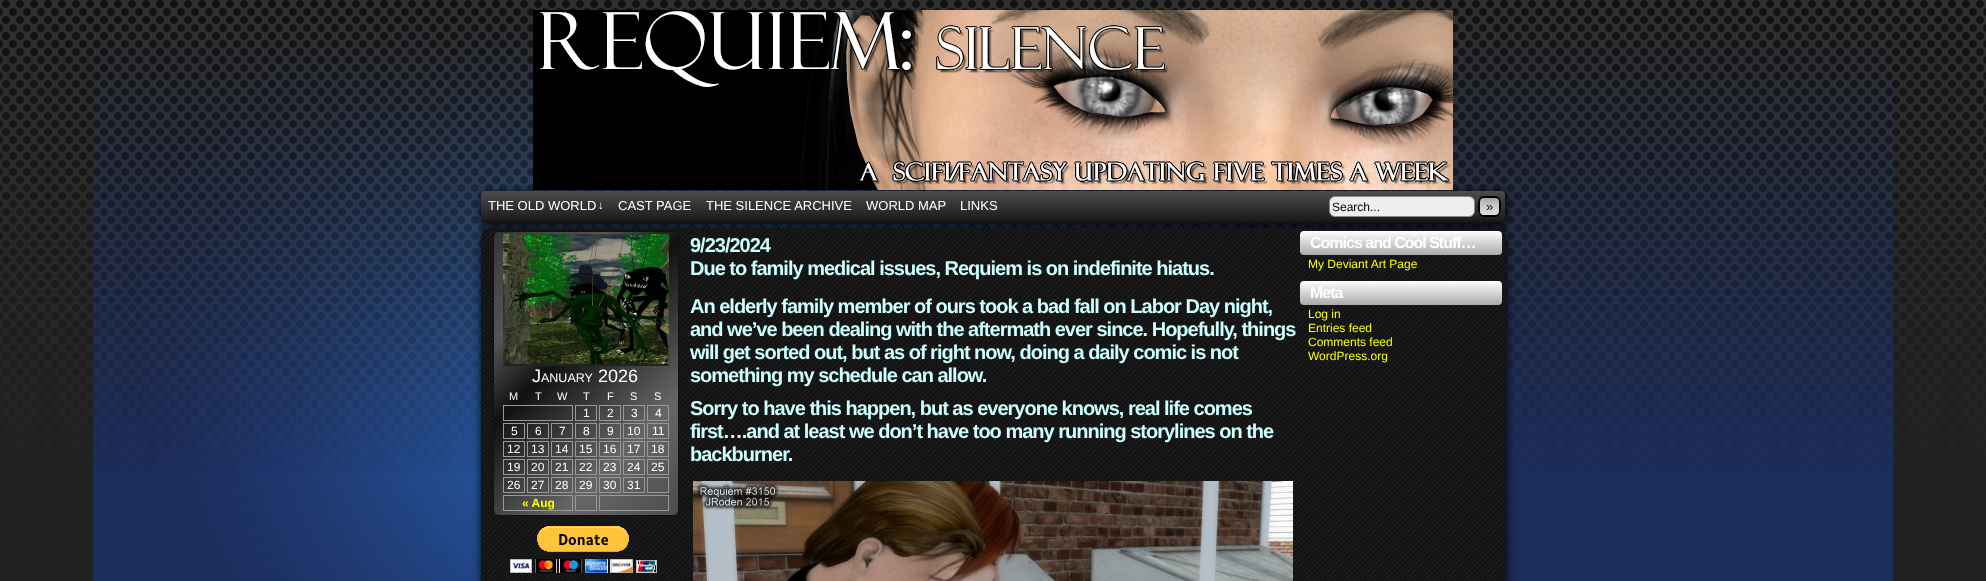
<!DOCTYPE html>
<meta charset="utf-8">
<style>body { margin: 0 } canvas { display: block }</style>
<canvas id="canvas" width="1986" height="581"></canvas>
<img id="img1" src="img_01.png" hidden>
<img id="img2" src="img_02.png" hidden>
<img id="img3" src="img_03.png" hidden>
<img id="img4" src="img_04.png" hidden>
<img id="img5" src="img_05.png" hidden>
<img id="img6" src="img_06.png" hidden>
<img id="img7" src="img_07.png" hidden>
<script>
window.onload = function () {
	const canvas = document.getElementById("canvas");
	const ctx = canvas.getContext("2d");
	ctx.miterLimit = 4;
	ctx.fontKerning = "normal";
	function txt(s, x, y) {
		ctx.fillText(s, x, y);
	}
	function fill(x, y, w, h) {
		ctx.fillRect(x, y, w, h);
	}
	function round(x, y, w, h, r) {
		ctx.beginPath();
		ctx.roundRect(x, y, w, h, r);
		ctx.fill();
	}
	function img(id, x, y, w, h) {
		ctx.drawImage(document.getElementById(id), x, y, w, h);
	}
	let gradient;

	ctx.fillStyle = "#222222";
	fill(0, 0, 1986, 581);
	img("img1", 93, 25, 1800, 556);
	img("img2", 0, 0, 1986, 470);
	ctx.fillStyle = "#000000";
	ctx.filter = "blur(5px)";
	ctx.beginPath();
	ctx.roundRect(482, 193, 1024, 32, 4);
	ctx.fill();
	ctx.filter = "none";
	img("img3", 533, 10, 920, 180);
	gradient = ctx.createLinearGradient(993, 191, 993, 223);
	gradient.addColorStop(0, "#4C4C4C");
	gradient.addColorStop(0.91, "#1C1C1C");
	gradient.addColorStop(1, "#131313");
	ctx.fillStyle = gradient;
	round(481, 191, 1024, 32, 4);
	ctx.fillStyle = "#000000";
	ctx.filter = "blur(5px)";
	ctx.beginPath();
	ctx.roundRect(482, 230, 1024, 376, 10);
	ctx.fill();
	ctx.filter = "none";
	ctx.fillStyle = "#EEEEEE";
	ctx.beginPath();
	ctx.roundRect(1329.5, 196.5, 145, 20, 5.5);
	ctx.fill();
	ctx.strokeStyle = "#888888";
	ctx.stroke();
	ctx.save();
	ctx.beginPath();
	ctx.roundRect(1478, 196, 23, 21, 6);
	ctx.clip();
	gradient = ctx.createLinearGradient(1490, 198, 1490, 215);
	gradient.addColorStop(0, "#AAAAAA");
	gradient.addColorStop(0.5, "#CCCCCC");
	gradient.addColorStop(1, "#DDDDDD");
	ctx.fillStyle = gradient;
	fill(1478, 198, 23, 17);
	ctx.restore();
	ctx.beginPath();
	ctx.roundRect(1479, 197, 21, 19, 5);
	ctx.strokeStyle = "#000000";
	ctx.lineWidth = 2;
	ctx.stroke();
	ctx.fillStyle = "#111111";
	round(481, 228, 1024, 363, 10);
	img("img4", 481, 228, 1024, 353);
	ctx.save();
	ctx.beginPath();
	ctx.roundRect(493, 231, 186, 285, 6);
	ctx.clip();
	gradient = ctx.createLinearGradient(469, 257, 703, 490);
	gradient.addColorStop(0, "#333333");
	gradient.addColorStop(0.09, "#444444");
	gradient.addColorStop(0.24, "#555555");
	gradient.addColorStop(0.41, "#111111");
	gradient.addColorStop(0.75, "#666666");
	gradient.addColorStop(0.88, "#595959");
	gradient.addColorStop(1, "#4C4C4C");
	ctx.fillStyle = gradient;
	fill(494, 232, 184, 283);
	ctx.restore();
	ctx.beginPath();
	ctx.roundRect(493.5, 231.5, 185, 284, 5.5);
	ctx.strokeStyle = "#111111";
	ctx.lineWidth = 1;
	ctx.stroke();
	ctx.fillStyle = "#222222";
	fill(503, 364, 166, 2);
	img("img5", 503, 234, 166, 130);
	ctx.strokeStyle = "#999999";
	ctx.strokeRect(503.5, 405.5, 69, 15);
	ctx.strokeRect(575.5, 405.5, 21, 15);
	ctx.strokeRect(599.5, 405.5, 21, 15);
	ctx.strokeRect(623.5, 405.5, 21, 15);
	ctx.strokeRect(647.5, 405.5, 21, 15);
	ctx.strokeRect(503.5, 423.5, 21, 15);
	ctx.strokeRect(527.5, 423.5, 21, 15);
	ctx.strokeRect(551.5, 423.5, 21, 15);
	ctx.strokeRect(575.5, 423.5, 21, 15);
	ctx.strokeRect(599.5, 423.5, 21, 15);
	ctx.strokeRect(623.5, 423.5, 21, 15);
	ctx.strokeRect(647.5, 423.5, 21, 15);
	ctx.strokeRect(503.5, 441.5, 21, 15);
	ctx.strokeRect(527.5, 441.5, 21, 15);
	ctx.strokeRect(551.5, 441.5, 21, 15);
	ctx.strokeRect(575.5, 441.5, 21, 15);
	ctx.strokeRect(599.5, 441.5, 21, 15);
	ctx.strokeRect(623.5, 441.5, 21, 15);
	ctx.strokeRect(647.5, 441.5, 21, 15);
	ctx.strokeRect(503.5, 459.5, 21, 15);
	ctx.strokeRect(527.5, 459.5, 21, 15);
	ctx.strokeRect(551.5, 459.5, 21, 15);
	ctx.strokeRect(575.5, 459.5, 21, 15);
	ctx.strokeRect(599.5, 459.5, 21, 15);
	ctx.strokeRect(623.5, 459.5, 21, 15);
	ctx.strokeRect(647.5, 459.5, 21, 15);
	ctx.strokeRect(503.5, 477.5, 21, 15);
	ctx.strokeRect(527.5, 477.5, 21, 15);
	ctx.strokeRect(551.5, 477.5, 21, 15);
	ctx.strokeRect(575.5, 477.5, 21, 15);
	ctx.strokeRect(599.5, 477.5, 21, 15);
	ctx.strokeRect(623.5, 477.5, 21, 15);
	ctx.strokeRect(647.5, 477.5, 21, 15);
	ctx.strokeRect(503.5, 495.5, 69, 15);
	ctx.strokeRect(575.5, 495.5, 21, 15);
	ctx.strokeRect(599.5, 495.5, 69, 15);
	img("img6", 510, 526, 147, 47);
	img("img7", 693, 481, 600, 100);
	gradient = ctx.createLinearGradient(1401, 231, 1401, 255);
	gradient.addColorStop(0, "#FEFEFE");
	gradient.addColorStop(1, "#AAAAAA");
	ctx.fillStyle = gradient;
	round(1300, 231, 202, 24, 4);
	gradient = ctx.createLinearGradient(1401, 281, 1401, 305);
	gradient.addColorStop(0, "#FEFEFE");
	gradient.addColorStop(1, "#AAAAAA");
	ctx.fillStyle = gradient;
	round(1300, 281, 202, 24, 4);
	ctx.font = "13px Liberation Sans";
	ctx.fillStyle = "#FFFFFF";
	txt("THE OLD WORLD", 488, 210);
	ctx.font = "11px Liberation Sans";
	txt("↓", 598, 209);
	ctx.font = "13px Liberation Sans";
	txt("CAST PAGE", 618, 210);
	txt("THE SILENCE ARCHIVE", 706, 210);
	txt("WORLD MAP", 866, 210);
	txt("LINKS", 960, 210);
	ctx.font = "12px Liberation Sans";
	ctx.fillStyle = "#000000";
	txt("Search...", 1332, 211);
	ctx.font = "13px Liberation Sans";
	txt("»", 1486, 211);
	ctx.font = "18px Liberation Sans";
	ctx.fillStyle = "#FFFFFF";
	txt("J", 532, 382);
	ctx.font = "12.5px Liberation Sans";
	txt("ANUARY", 541, 382);
	ctx.font = "18px Liberation Sans";
	txt("2026", 598, 382);
	ctx.font = "11px Liberation Sans";
	txt("M", 509, 400);
	txt("T", 535, 400);
	txt("W", 557, 400);
	txt("T", 583, 400);
	txt("F", 607, 400);
	txt("S", 630, 400);
	txt("S", 654, 400);
	ctx.font = "12px Liberation Sans";
	txt("1", 583, 417);
	txt("2", 607, 417);
	txt("3", 631, 417);
	txt("4", 655, 417);
	txt("5", 511, 435);
	txt("6", 535, 435);
	txt("7", 559, 435);
	txt("8", 583, 435);
	txt("9", 607, 435);
	txt("10", 627, 435);
	txt("11", 652, 435);
	txt("12", 507, 453);
	txt("13", 531, 453);
	txt("14", 555, 453);
	txt("15", 579, 453);
	txt("16", 603, 453);
	txt("17", 627, 453);
	txt("18", 651, 453);
	txt("19", 507, 471);
	txt("20", 531, 471);
	txt("21", 555, 471);
	txt("22", 579, 471);
	txt("23", 603, 471);
	txt("24", 627, 471);
	txt("25", 651, 471);
	txt("26", 507, 489);
	txt("27", 531, 489);
	txt("28", 555, 489);
	txt("29", 579, 489);
	txt("30", 603, 489);
	txt("31", 627, 489);
	ctx.font = "bold 12px Liberation Sans";
	ctx.fillStyle = "#FCFF00";
	txt("« Aug", 522, 507);
	ctx.letterSpacing = "-1px";
	ctx.font = "bold 20px Liberation Sans";
	ctx.fillStyle = "#CCFFFF";
	txt("9/23/2024", 690, 252);
	txt("Due to family medical issues, Requiem is on indefinite hiatus.", 690, 275);
	txt("An elderly family member of ours took a bad fall on Labor Day night,", 690, 313);
	txt("and we’ve been dealing with the aftermath ever since. Hopefully, things", 690, 336);
	txt("will get sorted out, but as of right now, doing a daily comic is not", 690, 359);
	txt("something my schedule can allow.", 690, 382);
	txt("Sorry to have this happen, but as everyone knows, real life comes", 690, 415);
	txt("first….and at least we don’t have too many running storylines on the", 690, 438);
	txt("backburner.", 690, 461);
	ctx.font = "bold 16px Liberation Sans";
	ctx.fillStyle = "#FFFFFF";
	txt("Comics and Cool Stuff…", 1310, 248);
	ctx.letterSpacing = "0px";
	ctx.font = "12px Liberation Sans";
	ctx.fillStyle = "#FCFF00";
	txt("My Deviant Art Page", 1308, 268);
	ctx.letterSpacing = "-1px";
	ctx.font = "bold 16px Liberation Sans";
	ctx.fillStyle = "#FFFFFF";
	txt("Meta", 1310, 298);
	ctx.letterSpacing = "0px";
	ctx.font = "12px Liberation Sans";
	ctx.fillStyle = "#FCFF00";
	txt("Log in", 1308, 318);
	txt("Entries feed", 1308, 332);
	txt("Comments feed", 1308, 346);
	txt("WordPress.org", 1308, 360);
};
</script>
